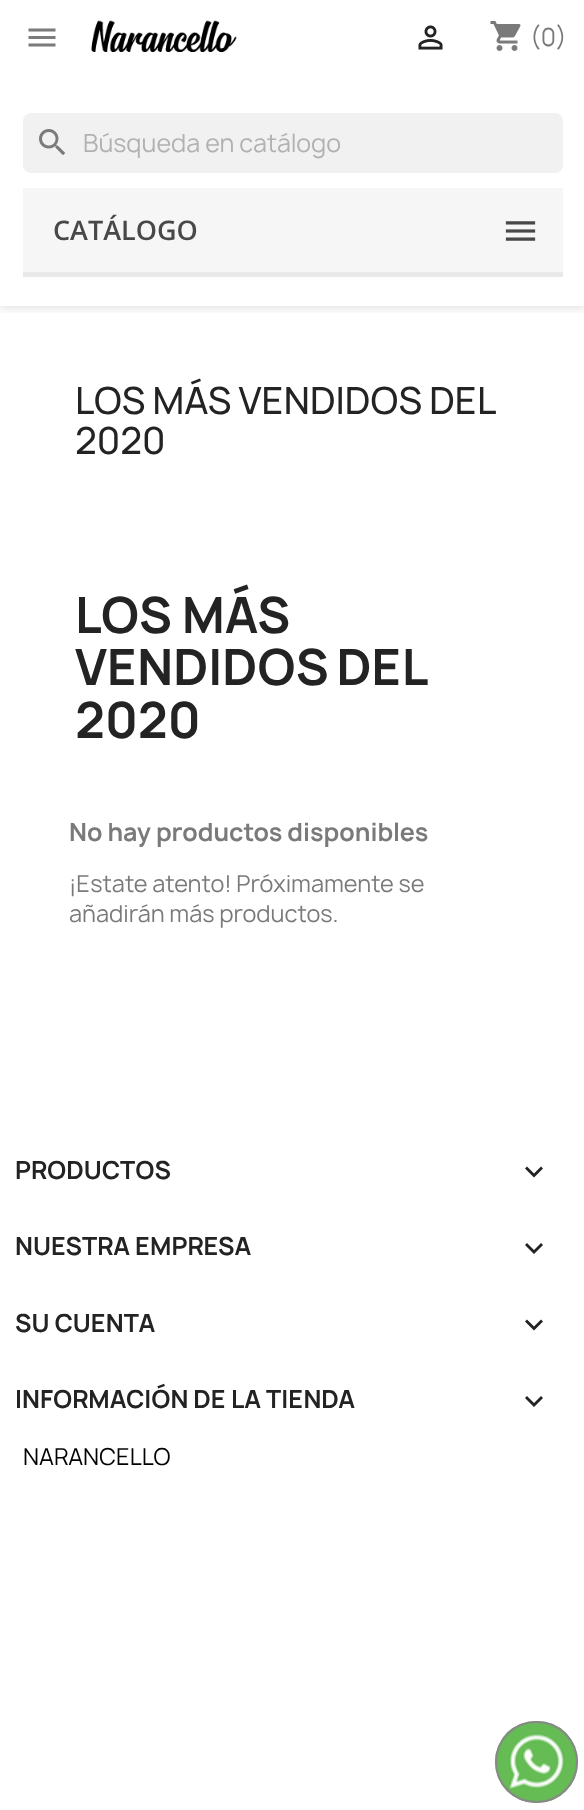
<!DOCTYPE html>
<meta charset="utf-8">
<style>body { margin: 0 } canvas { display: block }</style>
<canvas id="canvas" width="584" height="1810"></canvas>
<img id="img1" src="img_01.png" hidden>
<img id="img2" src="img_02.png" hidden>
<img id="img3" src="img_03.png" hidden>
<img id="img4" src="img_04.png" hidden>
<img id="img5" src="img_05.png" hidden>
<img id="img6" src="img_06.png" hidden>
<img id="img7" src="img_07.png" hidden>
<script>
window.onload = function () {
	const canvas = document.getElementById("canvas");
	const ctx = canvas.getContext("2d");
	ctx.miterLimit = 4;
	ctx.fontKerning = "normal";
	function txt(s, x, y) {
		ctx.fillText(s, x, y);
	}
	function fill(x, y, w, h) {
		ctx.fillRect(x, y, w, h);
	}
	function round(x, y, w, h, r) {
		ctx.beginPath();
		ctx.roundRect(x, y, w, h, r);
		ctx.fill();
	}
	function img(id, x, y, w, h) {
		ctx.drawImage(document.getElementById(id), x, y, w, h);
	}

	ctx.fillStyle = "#FFFFFF";
	fill(0, 0, 584, 1810);
	ctx.save();
	ctx.beginPath();
	ctx.rect(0, 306, 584, 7);
	ctx.clip();
	ctx.fillStyle = "rgba(0, 0, 0, 0.11)";
	ctx.filter = "blur(4px)";
	ctx.beginPath();
	ctx.rect(0, 3, 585, 306);
	ctx.fill();
	ctx.filter = "none";
	ctx.restore();
	img("img1", 28, 28, 28, 19);
	img("img2", 91, 20, 146, 32);
	img("img3", 418, 25, 25, 25);
	img("img4", 490, 21, 31, 30);
	ctx.fillStyle = "#F1F1F1";
	round(23, 113, 540, 60, 8);
	img("img5", 39, 129, 27, 26);
	ctx.fillStyle = "#F6F6F6";
	fill(23, 188, 540, 84);
	ctx.fillStyle = "#E9E9E9";
	fill(23, 272, 540, 5);
	img("img6", 505, 221, 31, 20);
	ctx.fillStyle = "#232323";
	ctx.beginPath();
	ctx.moveTo(527, 1166.5);
	ctx.lineTo(534, 1173.5);
	ctx.lineTo(541, 1166.5);
	ctx.lineTo(543, 1168.5);
	ctx.lineTo(534, 1177.5);
	ctx.lineTo(525, 1168.5);
	ctx.closePath();
	ctx.fill();
	ctx.beginPath();
	ctx.moveTo(527, 1243);
	ctx.lineTo(534, 1250);
	ctx.lineTo(541, 1243);
	ctx.lineTo(543, 1245);
	ctx.lineTo(534, 1254);
	ctx.lineTo(525, 1245);
	ctx.closePath();
	ctx.fill();
	ctx.beginPath();
	ctx.moveTo(527, 1319.5);
	ctx.lineTo(534, 1326.5);
	ctx.lineTo(541, 1319.5);
	ctx.lineTo(543, 1321.5);
	ctx.lineTo(534, 1330.5);
	ctx.lineTo(525, 1321.5);
	ctx.closePath();
	ctx.fill();
	ctx.beginPath();
	ctx.moveTo(527, 1396);
	ctx.lineTo(534, 1403);
	ctx.lineTo(541, 1396);
	ctx.lineTo(543, 1398);
	ctx.lineTo(534, 1407);
	ctx.lineTo(525, 1398);
	ctx.closePath();
	ctx.fill();
	ctx.fillStyle = "#65BC54";
	round(495, 1721, 83, 82, 41);
	img("img7", 502, 1727, 68, 69);
	ctx.beginPath();
	ctx.roundRect(496, 1722, 81, 80, 40);
	ctx.strokeStyle = "#888888";
	ctx.lineWidth = 2;
	ctx.stroke();
	ctx.font = "24px Manrope";
	ctx.fillStyle = "#7A7A7A";
	txt("(0)", 530, 46);
	ctx.fillStyle = "#B1B1B1";
	txt("Búsqueda en catálogo", 83, 152);
	ctx.font = "600 27px Open Sans";
	ctx.fillStyle = "#484848";
	txt("CATÁLOGO", 53, 240);
	ctx.wordSpacing = "-0.5px";
	ctx.font = "500 36px Manrope";
	ctx.fillStyle = "#232323";
	txt("LOS MÁS VENDIDOS DEL", 75, 414);
	ctx.wordSpacing = "0px";
	txt("2020", 75, 454);
	ctx.font = "bold 48px Manrope";
	txt("LOS MÁS", 75, 633);
	ctx.wordSpacing = "-2px";
	txt("VENDIDOS DEL", 75, 685);
	ctx.wordSpacing = "0px";
	txt("2020", 75, 738);
	ctx.font = "bold 24px Manrope";
	ctx.fillStyle = "#7A7A7A";
	txt("No hay productos disponibles", 69, 841);
	ctx.font = "22.5px Manrope";
	txt("¡Estate atento! Próximamente se", 69, 892);
	txt("añadirán más productos.", 69, 922);
	ctx.font = "bold 24px Manrope";
	ctx.fillStyle = "#232323";
	txt("PRODUCTOS", 15, 1179);
	txt("NUESTRA EMPRESA", 15, 1255);
	txt("SU CUENTA", 15, 1332);
	txt("INFORMACIÓN DE LA TIENDA", 15, 1408);
	ctx.font = "22.5px Manrope";
	ctx.fillStyle = "#000000";
	txt("NARANCELLO", 23, 1465);
};
</script>
